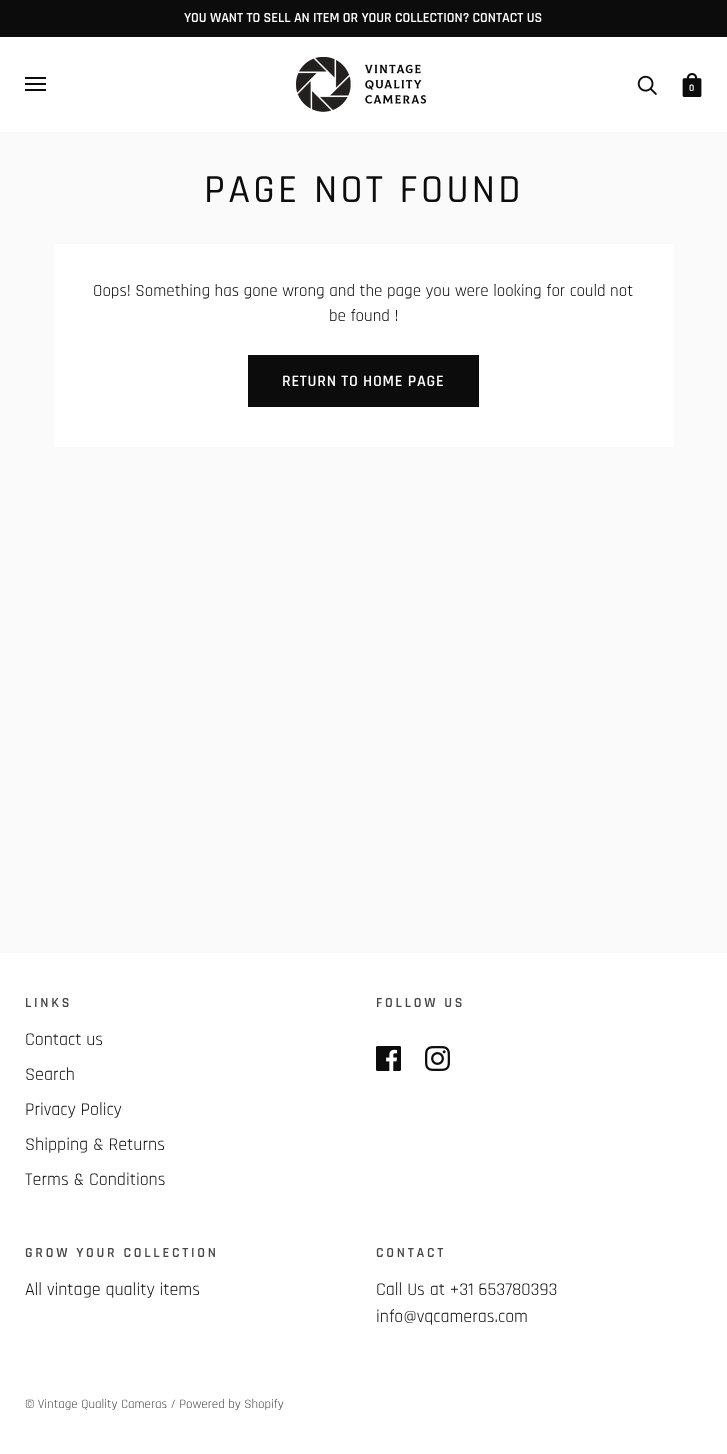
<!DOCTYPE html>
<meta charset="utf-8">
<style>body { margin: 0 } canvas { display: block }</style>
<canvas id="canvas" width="727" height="1454"></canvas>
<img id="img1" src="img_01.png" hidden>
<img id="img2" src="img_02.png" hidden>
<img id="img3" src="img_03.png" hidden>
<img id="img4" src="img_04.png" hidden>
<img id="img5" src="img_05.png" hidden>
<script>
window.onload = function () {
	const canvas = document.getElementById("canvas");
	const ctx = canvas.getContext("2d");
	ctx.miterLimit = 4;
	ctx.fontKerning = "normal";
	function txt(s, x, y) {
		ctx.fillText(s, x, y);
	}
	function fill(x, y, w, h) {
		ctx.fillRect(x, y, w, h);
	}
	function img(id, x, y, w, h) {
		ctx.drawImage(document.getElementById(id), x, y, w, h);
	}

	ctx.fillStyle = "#FFFFFF";
	fill(0, 0, 727, 1454);
	ctx.fillStyle = "#0C0C0D";
	fill(0, 0, 727, 37);
	fill(25, 77, 21, 2);
	fill(25, 83, 21, 2);
	fill(25, 89, 21, 2);
	img("img1", 296, 57, 130, 55);
	img("img2", 637, 75, 20, 20);
	img("img3", 682, 73, 20, 24);
	ctx.fillStyle = "#FAFAFA";
	fill(0, 132, 727, 821);
	ctx.fillStyle = "#FFFFFF";
	fill(54, 244, 620, 203);
	ctx.fillStyle = "#0C0C0D";
	fill(248, 355, 231, 52);
	img("img4", 376, 1046, 25, 25);
	img("img5", 425, 1046, 25, 25);
	ctx.font = "600 14px Rajdhani";
	ctx.fillStyle = "#FFFFFF";
	txt("YOU WANT TO SELL AN ITEM OR YOUR COLLECTION? CONTACT US", 184, 22);
	ctx.font = "600 10px Rajdhani";
	txt("0", 689, 91);
	ctx.letterSpacing = "3.25px";
	ctx.font = "500 40px Rajdhani";
	ctx.fillStyle = "#0C0C0D";
	txt("PAGE NOT FOUND", 204, 202);
	ctx.letterSpacing = "0px";
	ctx.font = "17px Rajdhani";
	ctx.fillStyle = "#000000";
	txt("Oops! Something has gone wrong and the page you were looking for could not", 93, 296);
	txt("be found !", 329, 321);
	ctx.letterSpacing = "0.75px";
	ctx.font = "600 16px Rajdhani";
	ctx.fillStyle = "#FFFFFF";
	txt("RETURN TO HOME PAGE", 282, 386);
	ctx.letterSpacing = "2.75px";
	ctx.font = "600 14px Rajdhani";
	ctx.fillStyle = "#464649";
	txt("LINKS", 25, 1007);
	ctx.letterSpacing = "0px";
	ctx.font = "18px Rajdhani";
	ctx.fillStyle = "#0C0C0D";
	txt("Contact us", 25, 1045);
	txt("Search", 25, 1080);
	txt("Privacy Policy", 25, 1115);
	txt("Shipping & Returns", 25, 1150);
	txt("Terms & Conditions", 25, 1185);
	ctx.letterSpacing = "2.75px";
	ctx.font = "600 14px Rajdhani";
	ctx.fillStyle = "#464649";
	txt("FOLLOW US", 376, 1007);
	txt("GROW YOUR COLLECTION", 25, 1257);
	ctx.letterSpacing = "0px";
	ctx.font = "18px Rajdhani";
	ctx.fillStyle = "#0C0C0D";
	txt("All vintage quality items", 25, 1295);
	ctx.letterSpacing = "2.75px";
	ctx.font = "600 14px Rajdhani";
	ctx.fillStyle = "#464649";
	txt("CONTACT", 376, 1257);
	ctx.letterSpacing = "0px";
	ctx.font = "18px Rajdhani";
	ctx.fillStyle = "#0C0C0D";
	txt("Call Us at +31 653780393", 376, 1295);
	txt("info@vqcameras.com", 376, 1322);
	ctx.font = "13px Rajdhani";
	ctx.fillStyle = "#464649";
	txt("© Vintage Quality Cameras / Powered by Shopify", 25, 1408);
};
</script>
